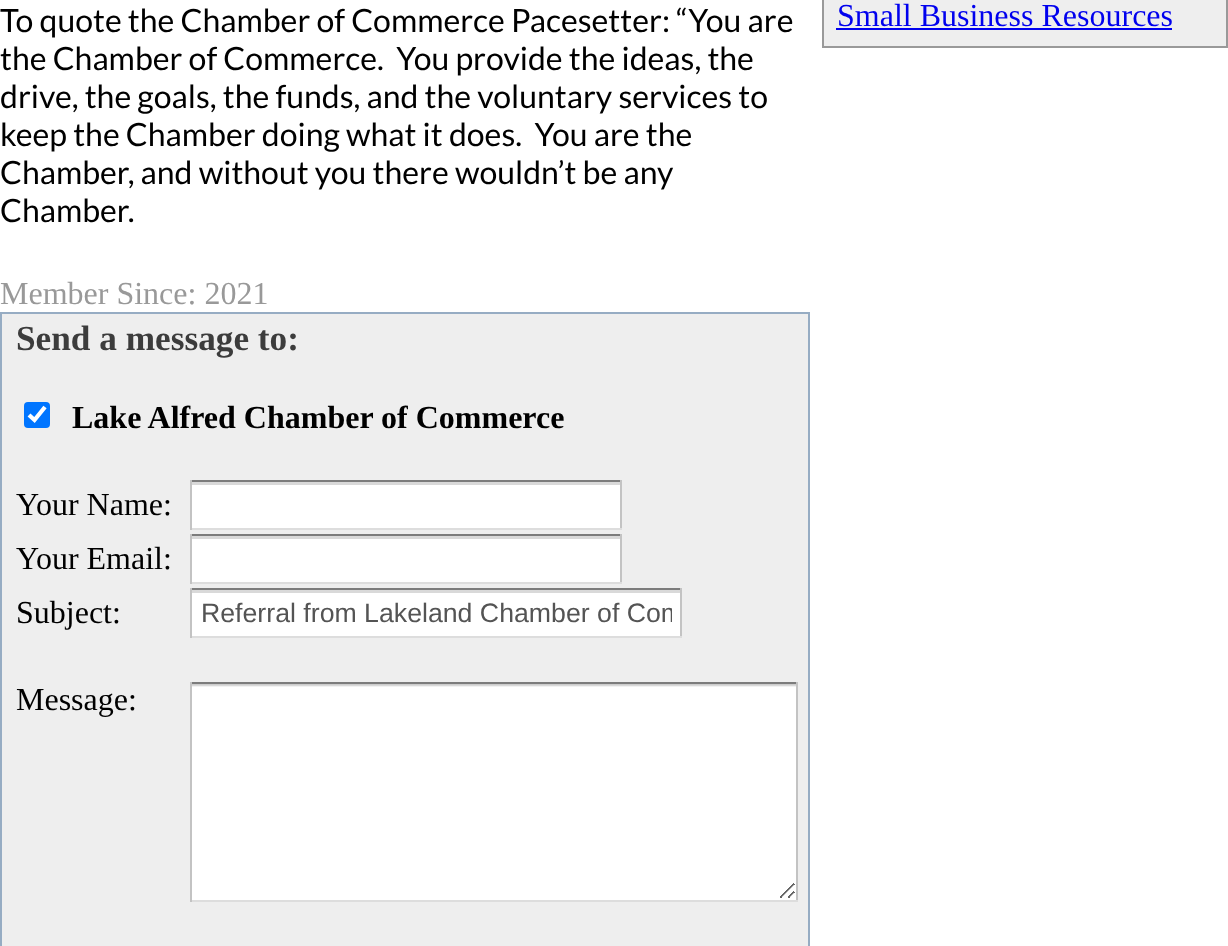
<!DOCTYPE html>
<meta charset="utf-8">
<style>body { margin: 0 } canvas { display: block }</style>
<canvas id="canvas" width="1228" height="946"></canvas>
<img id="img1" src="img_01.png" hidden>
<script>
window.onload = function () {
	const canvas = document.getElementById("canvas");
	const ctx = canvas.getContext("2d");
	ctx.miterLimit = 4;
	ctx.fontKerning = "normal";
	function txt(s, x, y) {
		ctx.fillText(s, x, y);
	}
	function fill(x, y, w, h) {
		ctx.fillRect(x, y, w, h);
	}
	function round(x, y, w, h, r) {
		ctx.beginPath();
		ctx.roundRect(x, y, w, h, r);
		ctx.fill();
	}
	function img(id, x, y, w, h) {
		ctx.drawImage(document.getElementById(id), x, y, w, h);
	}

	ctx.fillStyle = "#FFFFFF";
	fill(0, 0, 1228, 946);
	ctx.fillStyle = "#EEEEEE";
	ctx.beginPath();
	ctx.rect(1, 313, 808, 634);
	ctx.fill();
	ctx.strokeStyle = "#96ACC3";
	ctx.lineWidth = 2;
	ctx.stroke();
	ctx.fillStyle = "#0075FF";
	round(24, 402, 26, 26, 4);
	ctx.beginPath();
	ctx.moveTo(29, 415);
	ctx.lineTo(34.5, 420);
	ctx.lineTo(45, 407);
	ctx.strokeStyle = "#FFFFFF";
	ctx.lineWidth = 4.2;
	ctx.stroke();
	ctx.fillStyle = "#FFFFFF";
	fill(192, 485, 428, 43);
	ctx.fillStyle = "#D9D9D9";
	fill(190, 482, 432, 3);
	ctx.fillStyle = "#7C7C7C";
	fill(190, 480, 432, 2);
	ctx.fillStyle = "#C3C3C3";
	fill(620, 480, 2, 50);
	ctx.fillStyle = "#DDDDDD";
	fill(190, 528, 432, 2);
	ctx.fillStyle = "#C3C3C3";
	fill(190, 480, 2, 50);
	ctx.fillStyle = "#FFFFFF";
	fill(192, 539, 428, 43);
	ctx.fillStyle = "#D9D9D9";
	fill(190, 536, 432, 3);
	ctx.fillStyle = "#7C7C7C";
	fill(190, 534, 432, 2);
	ctx.fillStyle = "#C3C3C3";
	fill(620, 534, 2, 50);
	ctx.fillStyle = "#DDDDDD";
	fill(190, 582, 432, 2);
	ctx.fillStyle = "#C3C3C3";
	fill(190, 534, 2, 50);
	ctx.fillStyle = "#FFFFFF";
	fill(192, 593, 488, 43);
	ctx.fillStyle = "#D9D9D9";
	fill(190, 590, 492, 3);
	ctx.fillStyle = "#7C7C7C";
	fill(190, 588, 492, 2);
	ctx.fillStyle = "#C3C3C3";
	fill(680, 588, 2, 50);
	ctx.fillStyle = "#DDDDDD";
	fill(190, 636, 492, 2);
	ctx.fillStyle = "#C3C3C3";
	fill(190, 588, 2, 50);
	ctx.fillStyle = "#FFFFFF";
	fill(192, 685, 604, 215);
	img("img1", 192, 684, 604, 214);
	ctx.fillStyle = "#7C7C7C";
	fill(190, 682, 608, 2);
	ctx.fillStyle = "#C3C3C3";
	fill(796, 682, 2, 220);
	ctx.fillStyle = "#DDDDDD";
	fill(190, 900, 608, 2);
	ctx.fillStyle = "#C3C3C3";
	fill(190, 682, 2, 220);
	ctx.fillStyle = "#EEEEEE";
	ctx.beginPath();
	ctx.rect(823, -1, 404, 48);
	ctx.fill();
	ctx.strokeStyle = "#999999";
	ctx.lineWidth = 2;
	ctx.stroke();
	ctx.fillStyle = "#0000EE";
	fill(836, 28, 336, 2);
	ctx.font = "32px Lato";
	ctx.fillStyle = "#000000";
	txt("To quote the Chamber of Commerce Pacesetter: “You are", 0, 32);
	txt("the Chamber of Commerce.  You provide the ideas, the", 0, 70);
	txt("drive, the goals, the funds, and the voluntary services to", 0, 108);
	txt("keep the Chamber doing what it does.  You are the", 0, 146);
	txt("Chamber, and without you there wouldn’t be any", 0, 184);
	txt("Chamber.", 0, 222);
	ctx.font = "32px Liberation Serif";
	ctx.fillStyle = "#999999";
	txt("Member Since: 2021", 0, 304);
	ctx.font = "bold 35.25px Liberation Serif";
	ctx.fillStyle = "#3C3C3C";
	txt("Send a message to:", 16, 350);
	ctx.font = "bold 32px Liberation Serif";
	ctx.fillStyle = "#000000";
	txt("Lake Alfred Chamber of Commerce", 72, 428);
	ctx.font = "32px Liberation Serif";
	txt("Your Name:", 16, 515);
	txt("Your Email:", 16, 569);
	txt("Subject:", 16, 623);
	ctx.save();
	ctx.beginPath();
	ctx.rect(200, 598, 472, 30);
	ctx.clip();
	ctx.font = "26.7px Liberation Sans";
	ctx.fillStyle = "#545454";
	txt("Referral from Lakeland Chamber of Com", 201, 622);
	ctx.restore();
	txt("Message:", 16, 710);
	ctx.fillStyle = "#0000EE";
	txt("Small Business Resources", 837, 26);
};
</script>
